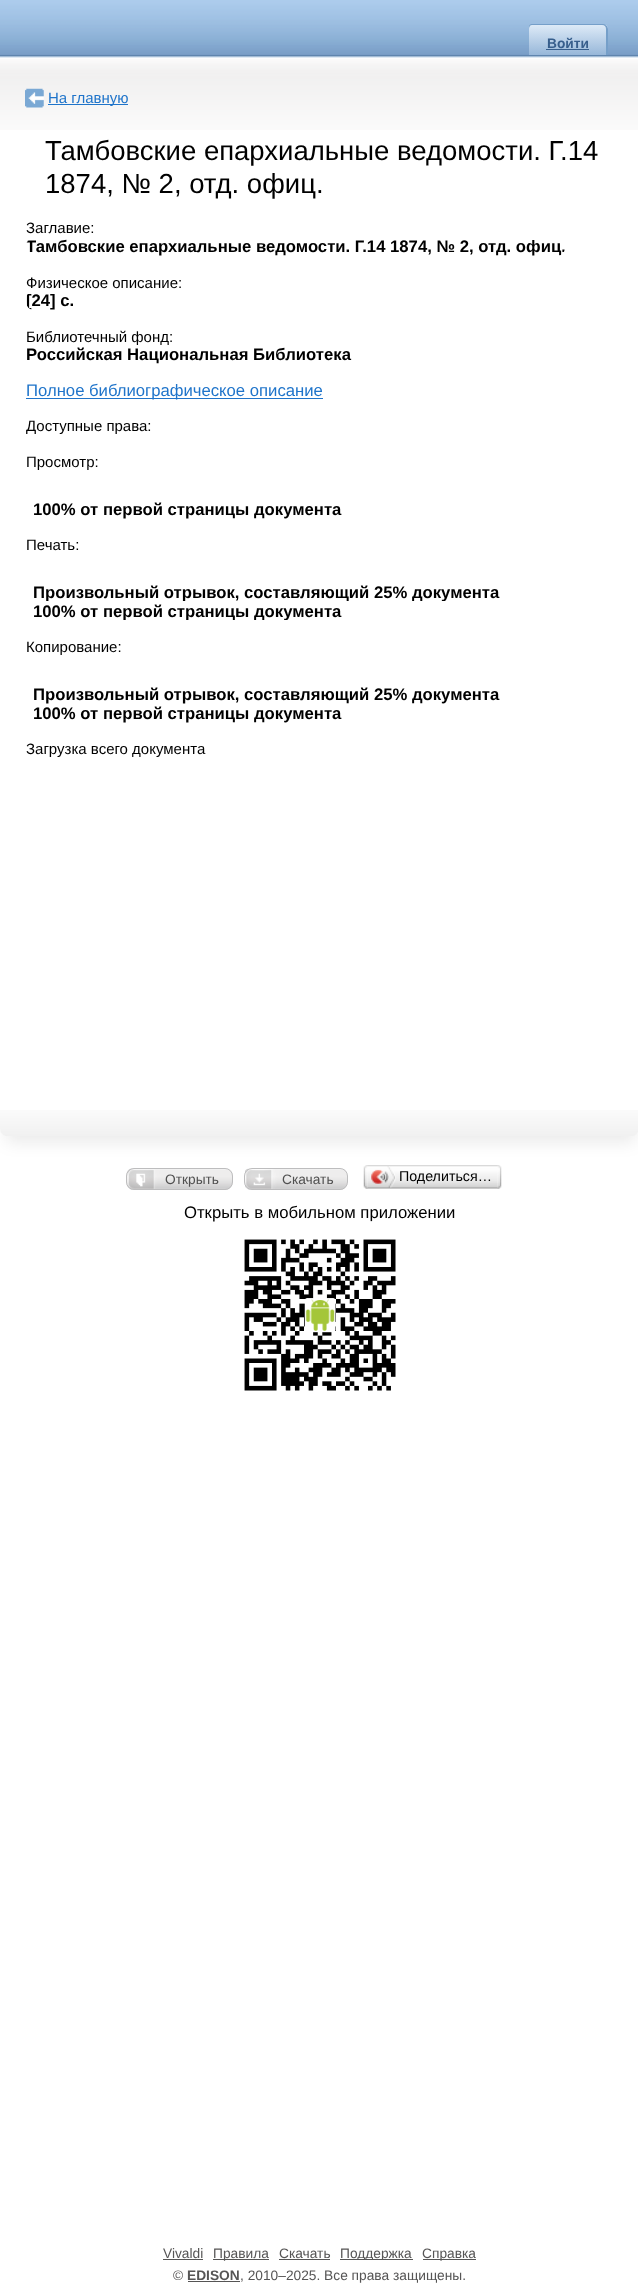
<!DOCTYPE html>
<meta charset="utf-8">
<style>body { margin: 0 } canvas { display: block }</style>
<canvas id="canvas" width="638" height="2290"></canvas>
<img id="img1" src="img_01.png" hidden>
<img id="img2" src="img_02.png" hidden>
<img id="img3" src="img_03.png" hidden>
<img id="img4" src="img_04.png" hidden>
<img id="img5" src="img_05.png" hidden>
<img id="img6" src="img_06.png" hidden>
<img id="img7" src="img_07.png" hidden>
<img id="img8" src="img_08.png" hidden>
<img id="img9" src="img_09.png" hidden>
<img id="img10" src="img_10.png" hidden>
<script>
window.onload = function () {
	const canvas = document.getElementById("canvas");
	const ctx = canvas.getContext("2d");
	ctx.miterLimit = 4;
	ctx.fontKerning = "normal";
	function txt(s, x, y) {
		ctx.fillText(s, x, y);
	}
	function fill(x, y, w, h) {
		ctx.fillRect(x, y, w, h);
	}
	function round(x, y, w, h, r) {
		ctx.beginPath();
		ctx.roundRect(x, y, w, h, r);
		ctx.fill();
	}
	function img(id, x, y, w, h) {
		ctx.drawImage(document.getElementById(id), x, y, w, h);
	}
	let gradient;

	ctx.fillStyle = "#FFFFFF";
	fill(0, 0, 638, 2290);
	img("img1", 0, 0, 638, 130);
	ctx.save();
	ctx.beginPath();
	ctx.roundRect(528, 24, 80, 31, [5, 5, 0, 0]);
	ctx.clip();
	gradient = ctx.createLinearGradient(529, -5, 529, 25);
	gradient.addColorStop(0, "#DDEAF7");
	gradient.addColorStop(1, "#97B7D9");
	ctx.fillStyle = gradient;
	fill(529, 24, 79, 1);
	gradient = ctx.createLinearGradient(529, 25, 529, 55);
	gradient.addColorStop(0, "#DDEAF7");
	gradient.addColorStop(1, "#97B7D9");
	ctx.fillStyle = gradient;
	fill(529, 25, 79, 30);
	ctx.restore();
	ctx.save();
	ctx.beginPath();
	ctx.rect(529, 24, 79, 32);
	ctx.clip();
	ctx.fillStyle = "#759FC9";
	ctx.beginPath();
	ctx.moveTo(532, 24);
	ctx.lineTo(602, 24);
	ctx.bezierCurveTo(605, 24, 608, 26, 608, 29);
	ctx.lineTo(608, 55);
	ctx.lineTo(528, 55);
	ctx.lineTo(528, 29);
	ctx.bezierCurveTo(528, 26, 530, 24, 532, 24);
	ctx.closePath();
	ctx.moveTo(532, 25);
	ctx.lineTo(602, 25);
	ctx.bezierCurveTo(605, 25, 606, 27, 606, 29);
	ctx.lineTo(606, 55);
	ctx.lineTo(529, 55);
	ctx.lineTo(529, 29);
	ctx.bezierCurveTo(529, 27, 530, 25, 532, 25);
	ctx.closePath();
	ctx.fill("evenodd");
	ctx.restore();
	ctx.fillStyle = "#375E8C";
	fill(546, 49, 43, 1);
	ctx.save();
	ctx.beginPath();
	ctx.moveTo(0, 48);
	ctx.lineTo(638, 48);
	ctx.lineTo(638, 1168);
	ctx.lineTo(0, 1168);
	ctx.closePath();
	ctx.moveTo(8, 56);
	ctx.lineTo(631, 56);
	ctx.bezierCurveTo(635.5, 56, 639, 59.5, 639, 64);
	ctx.lineTo(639, 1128);
	ctx.bezierCurveTo(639, 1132.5, 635.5, 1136, 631, 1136);
	ctx.lineTo(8, 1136);
	ctx.bezierCurveTo(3.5, 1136, 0, 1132.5, 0, 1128);
	ctx.lineTo(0, 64);
	ctx.bezierCurveTo(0, 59.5, 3.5, 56, 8, 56);
	ctx.closePath();
	ctx.clip("evenodd");
	ctx.fillStyle = "rgba(0, 0, 0, 0.08)";
	ctx.filter = "blur(8px)";
	ctx.beginPath();
	ctx.roundRect(6, 73, 629, 1070, 2.5);
	ctx.fill();
	ctx.filter = "none";
	ctx.restore();
	img("img2", 25, 88, 19, 20);
	ctx.fillStyle = "#1F74CA";
	fill(48, 104, 80, 1);
	img("img3", 0, 1110, 638, 26);
	fill(26, 398, 297, 1);
	ctx.fillStyle = "#EEEDED";
	round(126, 1168, 107, 22, 8);
	img("img4", 127, 1168, 105, 22);
	ctx.beginPath();
	ctx.roundRect(126.5, 1168.5, 106, 21, 7.5);
	ctx.strokeStyle = "#BDBDBE";
	ctx.stroke();
	img("img5", 245, 1168, 102, 22);
	ctx.beginPath();
	ctx.roundRect(244.5, 1168.5, 103, 21, 7.5);
	ctx.stroke();
	img("img6", 367, 1165, 131, 24);
	img("img7", 363, 1165, 5, 24);
	img("img8", 371, 1166, 25, 22);
	img("img9", 497, 1165, 5, 24);
	ctx.fillStyle = "#565555";
	fill(163, 2259, 40, 1);
	fill(213, 2259, 56, 1);
	fill(279, 2259, 51, 1);
	fill(340, 2259, 73, 1);
	fill(423, 2259, 53, 1);
	fill(188, 2281, 52, 1);
	ctx.font = "bold 13.75px Liberation Sans";
	ctx.fillStyle = "#375E8C";
	txt("Войти", 547, 48);
	ctx.font = "15px Liberation Sans";
	ctx.fillStyle = "#1F74CA";
	txt("На главную", 48, 103);
	ctx.font = "27.5px Liberation Sans";
	ctx.fillStyle = "#000000";
	txt("Тамбовские епархиальные ведомости. Г.14", 45, 160);
	txt("1874, № 2, отд. офиц.", 45, 193);
	ctx.font = "15px Liberation Sans";
	txt("Заглавие:", 26, 233);
	ctx.save();
	ctx.beginPath();
	ctx.roundRect(26, 238, 539, 18, 8);
	ctx.clip();
	ctx.font = "bold 16.7px Liberation Sans";
	txt("Тамбовские епархиальные ведомости. Г.14 1874, № 2, отд. офиц.", 26, 252);
	ctx.restore();
	txt("Физическое описание:", 26, 288);
	ctx.save();
	ctx.beginPath();
	ctx.roundRect(26, 291, 539, 19, 8);
	ctx.clip();
	ctx.font = "bold 16.7px Liberation Sans";
	txt("[24] с.", 26, 306);
	ctx.restore();
	txt("Библиотечный фонд:", 26, 342);
	ctx.font = "bold 16.7px Liberation Sans";
	txt("Российская Национальная Библиотека", 26, 360);
	ctx.font = "16.7px Liberation Sans";
	ctx.fillStyle = "#1F74CA";
	txt("Полное библиографическое описание", 26, 396);
	ctx.font = "15px Liberation Sans";
	ctx.fillStyle = "#000000";
	txt("Доступные права:", 26, 431);
	txt("Просмотр:", 26, 467);
	ctx.font = "bold 16.7px Liberation Sans";
	txt("100% от первой страницы документа", 33, 515);
	ctx.font = "15px Liberation Sans";
	txt("Печать:", 26, 550);
	ctx.save();
	ctx.beginPath();
	ctx.rect(33, 583, 532, 18);
	ctx.clip();
	ctx.font = "bold 16.7px Liberation Sans";
	txt("Произвольный отрывок, составляющий 25% документа", 33, 598);
	ctx.restore();
	ctx.save();
	ctx.beginPath();
	ctx.rect(33, 601, 532, 19);
	ctx.clip();
	ctx.font = "bold 16.7px Liberation Sans";
	txt("100% от первой страницы документа", 33, 617);
	ctx.restore();
	txt("Копирование:", 26, 652);
	ctx.font = "bold 16.7px Liberation Sans";
	txt("Произвольный отрывок, составляющий 25% документа", 33, 700);
	txt("100% от первой страницы документа", 33, 719);
	ctx.font = "15px Liberation Sans";
	txt("Загрузка всего документа", 26, 754);
	ctx.font = "13.75px Liberation Sans";
	ctx.fillStyle = "#505050";
	txt("Открыть", 165, 1184);
	txt("Скачать", 282, 1184);
	ctx.font = "14.25px Liberation Sans";
	ctx.fillStyle = "#000000";
	txt("Поделиться…", 399, 1181);
	ctx.font = "16.7px Liberation Sans";
	txt("Открыть в мобильном приложении", 184, 1218);
	img("img10", 244, 1221, 152, 170);
	ctx.font = "13.75px Liberation Sans";
	ctx.fillStyle = "#565555";
	txt("Vivaldi", 163, 2258);
	txt("Правила", 213, 2258);
	txt("Скачать", 279, 2258);
	ctx.save();
	ctx.beginPath();
	ctx.rect(0, 2245, 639, 15);
	ctx.clip();
	txt("Поддержка", 340, 2258);
	ctx.restore();
	txt("Справка", 422, 2258);
	txt("©", 173, 2280);
	ctx.font = "bold 13.75px Liberation Sans";
	txt("EDISON", 187, 2280);
	ctx.font = "13.75px Liberation Sans";
	txt(", 2010–2025. Все права защищены.", 240, 2280);
};
</script>
